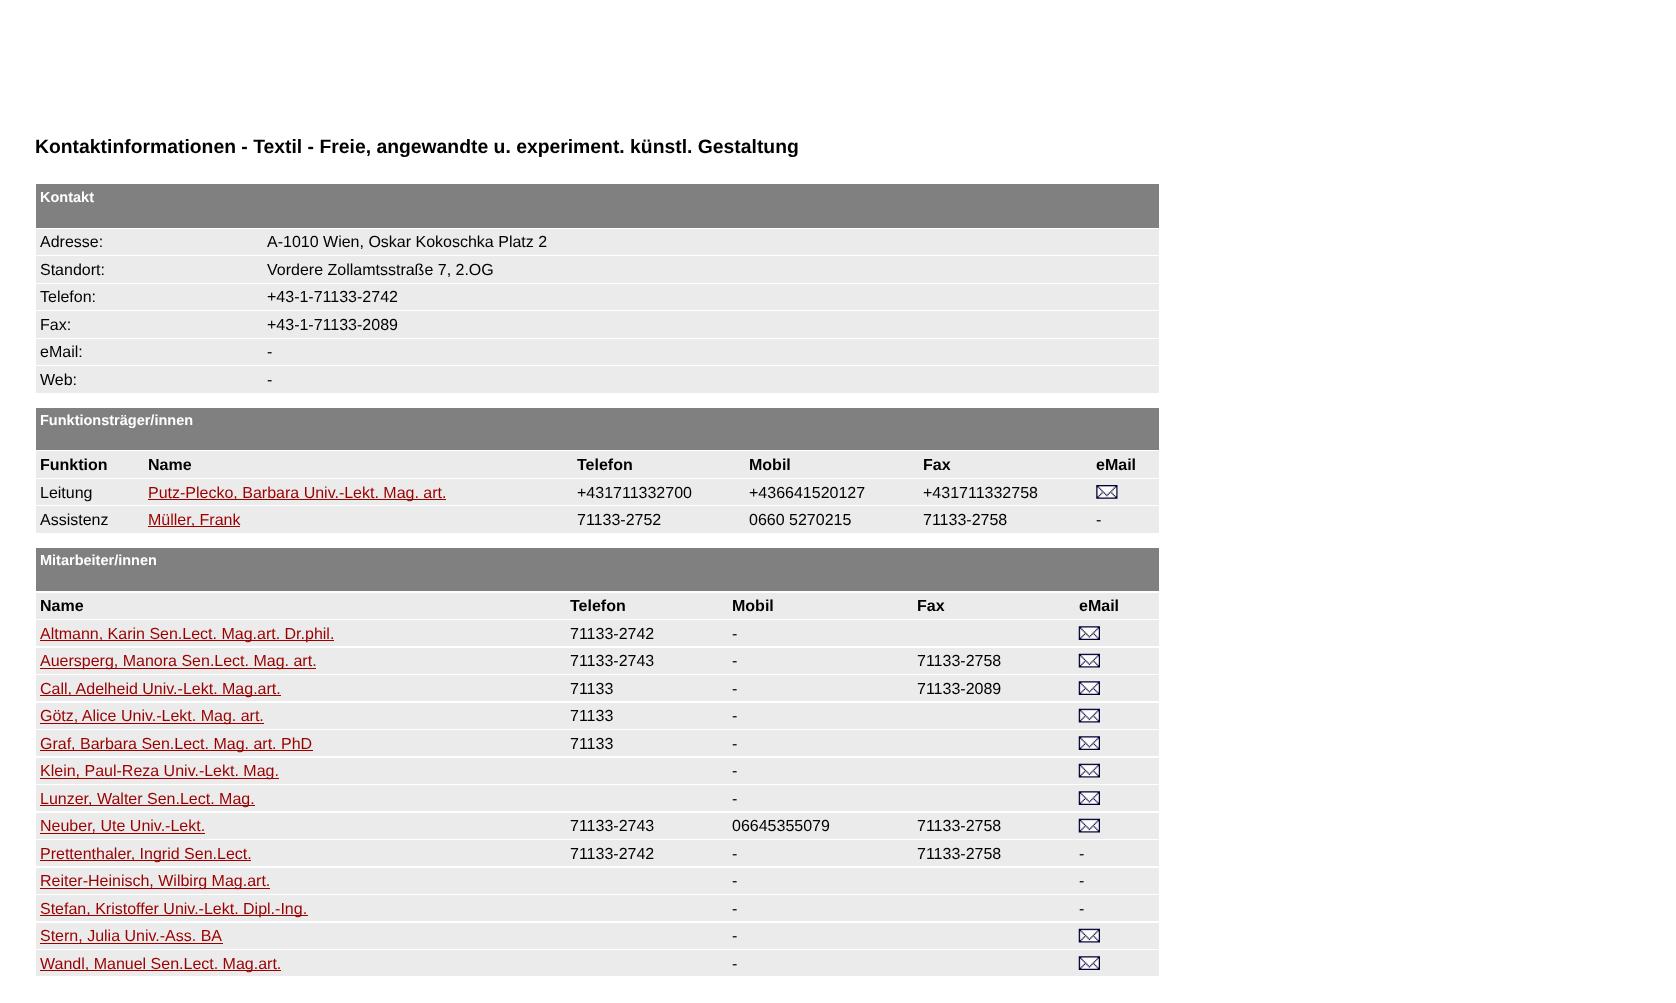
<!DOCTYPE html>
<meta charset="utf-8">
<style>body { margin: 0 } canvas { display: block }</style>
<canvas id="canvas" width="1676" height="1003"></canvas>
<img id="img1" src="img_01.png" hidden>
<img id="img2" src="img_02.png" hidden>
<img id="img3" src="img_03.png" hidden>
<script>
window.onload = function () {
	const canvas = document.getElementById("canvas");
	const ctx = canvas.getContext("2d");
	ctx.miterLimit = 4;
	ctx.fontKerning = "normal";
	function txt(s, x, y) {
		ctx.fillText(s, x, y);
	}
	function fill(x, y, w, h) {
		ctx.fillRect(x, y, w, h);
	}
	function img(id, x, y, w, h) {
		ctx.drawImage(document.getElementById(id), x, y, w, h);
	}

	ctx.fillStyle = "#FFFFFF";
	fill(0, 0, 1676, 1003);
	ctx.fillStyle = "#808080";
	fill(36, 184, 1123, 44);
	ctx.fillStyle = "#EBEBEB";
	fill(36, 229, 1123, 26);
	fill(36, 256, 1123, 27);
	fill(36, 284, 1123, 26);
	fill(36, 311, 1123, 27);
	fill(36, 339, 1123, 26);
	fill(36, 366, 1123, 27);
	ctx.fillStyle = "#808080";
	fill(36, 408, 1123, 42);
	ctx.fillStyle = "#EBEBEB";
	fill(36, 451, 1123, 27);
	fill(36, 479, 1123, 26);
	ctx.fillStyle = "#990000";
	fill(148, 499, 298, 1);
	img("img1", 1096, 485, 22, 14);
	ctx.fillStyle = "#EBEBEB";
	fill(36, 506, 1123, 27);
	ctx.fillStyle = "#990000";
	fill(148, 526, 92, 1);
	ctx.fillStyle = "#808080";
	fill(36, 548, 1123, 43);
	ctx.fillStyle = "#EBEBEB";
	fill(36, 593, 1123, 26);
	fill(36, 620, 1123, 26);
	ctx.fillStyle = "#990000";
	fill(40, 640, 294, 1);
	img("img2", 1078, 626, 22, 14);
	ctx.fillStyle = "#EBEBEB";
	fill(36, 648, 1123, 26);
	ctx.fillStyle = "#990000";
	fill(40, 668, 276, 1);
	img("img3", 1078, 653, 22, 15);
	ctx.fillStyle = "#EBEBEB";
	fill(36, 675, 1123, 26);
	ctx.fillStyle = "#990000";
	fill(40, 695, 241, 1);
	img("img2", 1078, 681, 22, 14);
	ctx.fillStyle = "#EBEBEB";
	fill(36, 703, 1123, 26);
	ctx.fillStyle = "#990000";
	fill(40, 723, 224, 1);
	img("img3", 1078, 708, 22, 15);
	ctx.fillStyle = "#EBEBEB";
	fill(36, 730, 1123, 26);
	ctx.fillStyle = "#990000";
	fill(40, 750, 273, 1);
	img("img2", 1078, 736, 22, 14);
	ctx.fillStyle = "#EBEBEB";
	fill(36, 758, 1123, 26);
	ctx.fillStyle = "#990000";
	fill(40, 778, 239, 1);
	img("img3", 1078, 763, 22, 15);
	ctx.fillStyle = "#EBEBEB";
	fill(36, 785, 1123, 26);
	ctx.fillStyle = "#990000";
	fill(40, 805, 215, 1);
	img("img2", 1078, 791, 22, 14);
	ctx.fillStyle = "#EBEBEB";
	fill(36, 813, 1123, 26);
	ctx.fillStyle = "#990000";
	fill(40, 833, 165, 1);
	img("img3", 1078, 818, 22, 15);
	ctx.fillStyle = "#EBEBEB";
	fill(36, 840, 1123, 26);
	ctx.fillStyle = "#990000";
	fill(40, 860, 211, 1);
	ctx.fillStyle = "#EBEBEB";
	fill(36, 868, 1123, 26);
	ctx.fillStyle = "#990000";
	fill(40, 888, 230, 1);
	ctx.fillStyle = "#EBEBEB";
	fill(36, 895, 1123, 26);
	ctx.fillStyle = "#990000";
	fill(40, 915, 268, 1);
	ctx.fillStyle = "#EBEBEB";
	fill(36, 923, 1123, 26);
	ctx.fillStyle = "#990000";
	fill(40, 943, 183, 1);
	img("img3", 1078, 928, 22, 15);
	ctx.fillStyle = "#EBEBEB";
	fill(36, 950, 1123, 26);
	ctx.fillStyle = "#990000";
	fill(40, 970, 241, 1);
	img("img2", 1078, 956, 22, 14);
	ctx.font = "bold 19.35px Liberation Sans";
	ctx.fillStyle = "#000000";
	txt("Kontaktinformationen - Textil - Freie, angewandte u. experiment. künstl. Gestaltung", 35, 153);
	ctx.font = "bold 14.5px Liberation Sans";
	ctx.fillStyle = "#FFFFFF";
	txt("Kontakt", 40, 202);
	ctx.font = "16px Liberation Sans";
	ctx.fillStyle = "#000000";
	txt("Adresse:", 40, 247);
	txt("A-1010 Wien, Oskar Kokoschka Platz 2", 267, 247);
	txt("Standort:", 40, 275);
	txt("Vordere Zollamtsstraße 7, 2.OG", 267, 275);
	txt("Telefon:", 40, 302);
	txt("+43-1-71133-2742", 267, 302);
	txt("Fax:", 40, 330);
	txt("+43-1-71133-2089", 267, 330);
	txt("eMail:", 40, 357);
	txt("-", 267, 357);
	txt("Web:", 40, 385);
	txt("-", 267, 385);
	ctx.font = "bold 14.5px Liberation Sans";
	ctx.fillStyle = "#FFFFFF";
	txt("Funktionsträger/innen", 40, 425);
	ctx.font = "bold 16px Liberation Sans";
	ctx.fillStyle = "#000000";
	txt("Funktion", 40, 470);
	txt("Name", 148, 470);
	txt("Telefon", 577, 470);
	txt("Mobil", 749, 470);
	txt("Fax", 923, 470);
	txt("eMail", 1096, 470);
	ctx.font = "16px Liberation Sans";
	txt("Leitung", 40, 498);
	ctx.fillStyle = "#990000";
	txt("Putz-Plecko, Barbara Univ.-Lekt. Mag. art.", 148, 498);
	ctx.fillStyle = "#000000";
	txt("+431711332700", 577, 498);
	txt("+436641520127", 749, 498);
	txt("+431711332758", 923, 498);
	txt("Assistenz", 40, 525);
	ctx.fillStyle = "#990000";
	txt("Müller, Frank", 148, 525);
	ctx.fillStyle = "#000000";
	txt("71133-2752", 577, 525);
	txt("0660 5270215", 749, 525);
	txt("71133-2758", 923, 525);
	txt("-", 1096, 525);
	ctx.font = "bold 14.5px Liberation Sans";
	ctx.fillStyle = "#FFFFFF";
	txt("Mitarbeiter/innen", 40, 565);
	ctx.font = "bold 16px Liberation Sans";
	ctx.fillStyle = "#000000";
	txt("Name", 40, 611);
	txt("Telefon", 570, 611);
	txt("Mobil", 732, 611);
	txt("Fax", 917, 611);
	txt("eMail", 1079, 611);
	ctx.font = "16px Liberation Sans";
	ctx.fillStyle = "#990000";
	txt("Altmann, Karin Sen.Lect. Mag.art. Dr.phil.", 40, 639);
	ctx.fillStyle = "#000000";
	txt("71133-2742", 570, 639);
	txt("-", 732, 639);
	ctx.fillStyle = "#990000";
	txt("Auersperg, Manora Sen.Lect. Mag. art.", 40, 666);
	ctx.fillStyle = "#000000";
	txt("71133-2743", 570, 666);
	txt("-", 732, 666);
	txt("71133-2758", 917, 666);
	ctx.fillStyle = "#990000";
	txt("Call, Adelheid Univ.-Lekt. Mag.art.", 40, 694);
	ctx.fillStyle = "#000000";
	txt("71133", 570, 694);
	txt("-", 732, 694);
	txt("71133-2089", 917, 694);
	ctx.fillStyle = "#990000";
	txt("Götz, Alice Univ.-Lekt. Mag. art.", 40, 721);
	ctx.fillStyle = "#000000";
	txt("71133", 570, 721);
	txt("-", 732, 721);
	ctx.fillStyle = "#990000";
	txt("Graf, Barbara Sen.Lect. Mag. art. PhD", 40, 749);
	ctx.fillStyle = "#000000";
	txt("71133", 570, 749);
	txt("-", 732, 749);
	ctx.fillStyle = "#990000";
	txt("Klein, Paul-Reza Univ.-Lekt. Mag.", 40, 776);
	ctx.fillStyle = "#000000";
	txt("-", 732, 776);
	ctx.fillStyle = "#990000";
	txt("Lunzer, Walter Sen.Lect. Mag.", 40, 804);
	ctx.fillStyle = "#000000";
	txt("-", 732, 804);
	ctx.fillStyle = "#990000";
	txt("Neuber, Ute Univ.-Lekt.", 40, 831);
	ctx.fillStyle = "#000000";
	txt("71133-2743", 570, 831);
	txt("06645355079", 732, 831);
	txt("71133-2758", 917, 831);
	ctx.fillStyle = "#990000";
	txt("Prettenthaler, Ingrid Sen.Lect.", 40, 859);
	ctx.fillStyle = "#000000";
	txt("71133-2742", 570, 859);
	txt("-", 732, 859);
	txt("71133-2758", 917, 859);
	txt("-", 1079, 859);
	ctx.fillStyle = "#990000";
	txt("Reiter-Heinisch, Wilbirg Mag.art.", 40, 886);
	ctx.fillStyle = "#000000";
	txt("-", 732, 886);
	txt("-", 1079, 886);
	ctx.fillStyle = "#990000";
	txt("Stefan, Kristoffer Univ.-Lekt. Dipl.-Ing.", 40, 914);
	ctx.fillStyle = "#000000";
	txt("-", 732, 914);
	txt("-", 1079, 914);
	ctx.fillStyle = "#990000";
	txt("Stern, Julia Univ.-Ass. BA", 40, 941);
	ctx.fillStyle = "#000000";
	txt("-", 732, 941);
	ctx.fillStyle = "#990000";
	txt("Wandl, Manuel Sen.Lect. Mag.art.", 40, 969);
	ctx.fillStyle = "#000000";
	txt("-", 732, 969);
};
</script>
